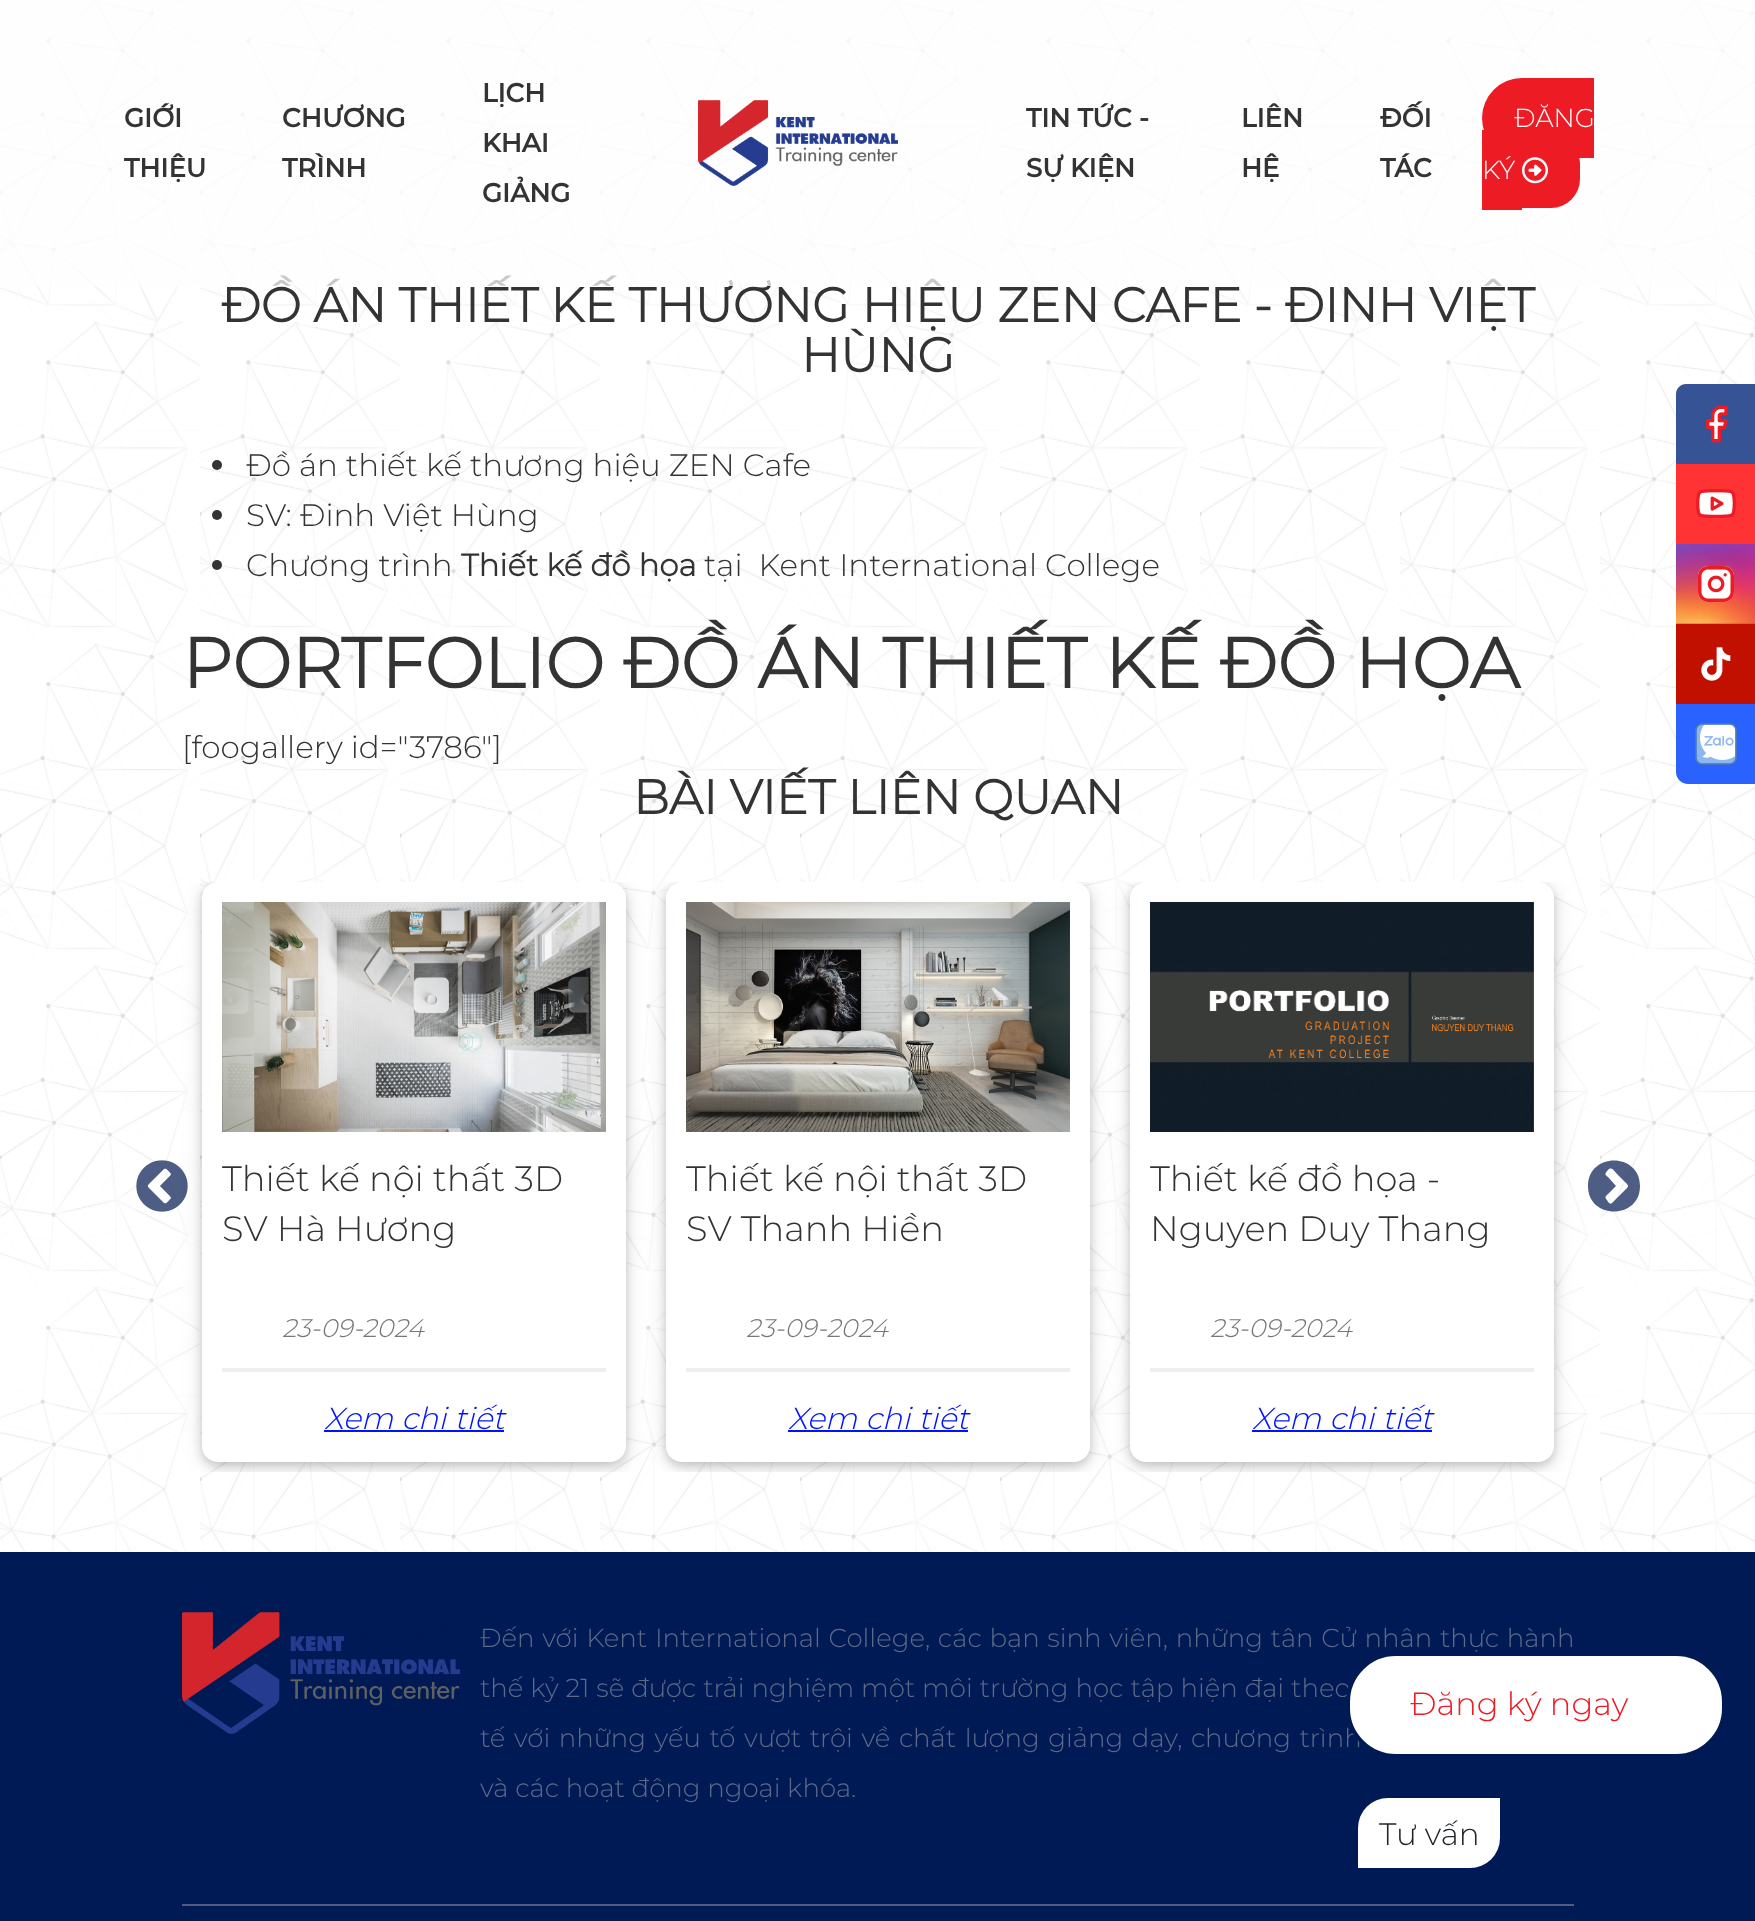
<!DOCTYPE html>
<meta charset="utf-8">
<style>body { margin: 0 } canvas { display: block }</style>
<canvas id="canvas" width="1755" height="1921"></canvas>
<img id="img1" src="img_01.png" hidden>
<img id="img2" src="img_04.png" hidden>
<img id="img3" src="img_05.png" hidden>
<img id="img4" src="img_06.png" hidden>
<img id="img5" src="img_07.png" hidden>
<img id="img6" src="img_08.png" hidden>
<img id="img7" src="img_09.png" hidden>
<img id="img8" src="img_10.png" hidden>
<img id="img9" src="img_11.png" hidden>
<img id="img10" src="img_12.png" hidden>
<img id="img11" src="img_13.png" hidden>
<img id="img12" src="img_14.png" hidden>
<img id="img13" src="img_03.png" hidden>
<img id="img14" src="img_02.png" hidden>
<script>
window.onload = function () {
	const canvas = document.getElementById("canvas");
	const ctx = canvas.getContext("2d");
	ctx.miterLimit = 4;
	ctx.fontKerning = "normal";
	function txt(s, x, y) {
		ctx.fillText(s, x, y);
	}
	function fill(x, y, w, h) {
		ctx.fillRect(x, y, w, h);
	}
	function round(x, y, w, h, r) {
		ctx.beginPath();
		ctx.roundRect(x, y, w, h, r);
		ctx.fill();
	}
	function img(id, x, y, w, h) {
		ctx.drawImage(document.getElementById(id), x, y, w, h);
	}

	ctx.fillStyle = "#FFFFFF";
	fill(0, 0, 1755, 1921);
	img("img1", 0, 0, 1755, 1552);
	ctx.fillStyle = "#333333";
	ctx.beginPath();
	ctx.arc(217, 465, 5, 0, Math.PI * 2);
	ctx.fill();
	ctx.beginPath();
	ctx.arc(217, 515, 5, 0, Math.PI * 2);
	ctx.fill();
	ctx.beginPath();
	ctx.arc(217, 565, 5, 0, Math.PI * 2);
	ctx.fill();
	img("img2", 136, 1160, 52, 52);
	ctx.save();
	ctx.beginPath();
	ctx.rect(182, 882, 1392, 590);
	ctx.clip();
	ctx.fillStyle = "rgba(0, 0, 0, 0.12)";
	ctx.filter = "blur(10px)";
	ctx.beginPath();
	ctx.roundRect(202, 886, 424, 580, 16);
	ctx.fill();
	ctx.filter = "none";
	ctx.fillStyle = "rgba(0, 0, 0, 0.16)";
	ctx.filter = "blur(5px)";
	ctx.beginPath();
	ctx.roundRect(202, 886, 424, 580, 16);
	ctx.fill();
	ctx.filter = "none";
	ctx.restore();
	ctx.fillStyle = "#FFFFFF";
	round(202, 882, 424, 580, 16);
	img("img3", 222, 902, 384, 230);
	ctx.fillStyle = "#EEEEEE";
	fill(222, 1368, 384, 4);
	ctx.fillStyle = "#0012FF";
	fill(324, 1430, 180, 2);
	ctx.save();
	ctx.beginPath();
	ctx.rect(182, 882, 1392, 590);
	ctx.clip();
	ctx.fillStyle = "rgba(0, 0, 0, 0.12)";
	ctx.filter = "blur(10px)";
	ctx.beginPath();
	ctx.roundRect(666, 886, 424, 580, 16);
	ctx.fill();
	ctx.filter = "none";
	ctx.fillStyle = "rgba(0, 0, 0, 0.16)";
	ctx.filter = "blur(5px)";
	ctx.beginPath();
	ctx.roundRect(666, 886, 424, 580, 16);
	ctx.fill();
	ctx.filter = "none";
	ctx.restore();
	ctx.fillStyle = "#FFFFFF";
	round(666, 882, 424, 580, 16);
	img("img4", 686, 902, 384, 230);
	ctx.fillStyle = "#EEEEEE";
	fill(686, 1368, 384, 4);
	ctx.fillStyle = "#0012FF";
	fill(788, 1430, 180, 2);
	ctx.save();
	ctx.beginPath();
	ctx.rect(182, 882, 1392, 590);
	ctx.clip();
	ctx.fillStyle = "rgba(0, 0, 0, 0.12)";
	ctx.filter = "blur(10px)";
	ctx.beginPath();
	ctx.roundRect(1130, 886, 424, 580, 16);
	ctx.fill();
	ctx.filter = "none";
	ctx.fillStyle = "rgba(0, 0, 0, 0.16)";
	ctx.filter = "blur(5px)";
	ctx.beginPath();
	ctx.roundRect(1130, 886, 424, 580, 16);
	ctx.fill();
	ctx.filter = "none";
	ctx.restore();
	ctx.fillStyle = "#FFFFFF";
	round(1130, 882, 424, 580, 16);
	img("img5", 1150, 902, 384, 230);
	ctx.fillStyle = "#EEEEEE";
	fill(1150, 1368, 384, 4);
	ctx.fillStyle = "#0012FF";
	fill(1252, 1430, 180, 2);
	ctx.fillStyle = "rgba(17, 39, 90, 0.75)";
	ctx.beginPath();
	ctx.moveTo(1612, 1203);
	ctx.bezierCurveTo(1610, 1205, 1608, 1202, 1607, 1200);
	ctx.bezierCurveTo(1604, 1197, 1606, 1196, 1609, 1193);
	ctx.lineTo(1616, 1186);
	ctx.lineTo(1608, 1177);
	ctx.bezierCurveTo(1604, 1174, 1605, 1174, 1608, 1170);
	ctx.bezierCurveTo(1612, 1166, 1614, 1171, 1617, 1174);
	ctx.lineTo(1625, 1182);
	ctx.bezierCurveTo(1629, 1186, 1629, 1186, 1625, 1190);
	ctx.closePath();
	ctx.moveTo(1640, 1186);
	ctx.bezierCurveTo(1640, 1152, 1588, 1152, 1588, 1186);
	ctx.bezierCurveTo(1588, 1220, 1640, 1220, 1640, 1186);
	ctx.closePath();
	ctx.fill();
	ctx.fillStyle = "#365396";
	ctx.beginPath();
	ctx.moveTo(1686, 384);
	ctx.lineTo(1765, 384);
	ctx.lineTo(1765, 464);
	ctx.lineTo(1676, 464);
	ctx.lineTo(1676, 394);
	ctx.bezierCurveTo(1676, 388.5, 1680.5, 384, 1686, 384);
	ctx.closePath();
	ctx.fill();
	img("img6", 1706, 405, 22, 38);
	ctx.fillStyle = "#FF3333";
	fill(1676, 464, 79, 80);
	img("img7", 1696, 489, 40, 29);
	ctx.fillStyle = "#386C99";
	fill(1676, 622, 79, 2);
	img("img8", 1676, 544, 79, 80);
	img("img9", 1698, 566, 36, 36);
	ctx.fillStyle = "#C21000";
	fill(1676, 624, 79, 80);
	img("img10", 1701, 647, 30, 34);
	ctx.fillStyle = "#2962FF";
	ctx.beginPath();
	ctx.moveTo(1676, 704);
	ctx.lineTo(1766, 704);
	ctx.lineTo(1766, 784);
	ctx.lineTo(1688, 784);
	ctx.bezierCurveTo(1681.5, 784, 1676, 778.5, 1676, 772);
	ctx.closePath();
	ctx.fill();
	img("img11", 1695, 723, 42, 42);
	ctx.fillStyle = "#001A55";
	fill(0, 1552, 1755, 369);
	ctx.fillStyle = "#525B82";
	fill(182, 1904, 1392, 2);
	img("img12", 182, 1612, 278, 122);
	ctx.fillStyle = "#FFFFFF";
	ctx.beginPath();
	ctx.roundRect(1358, 1798, 142, 70, [30, 0, 30, 0]);
	ctx.fill();
	ctx.font = "bold 48px Montserrat";
	ctx.fillStyle = "#333333";
	txt("ĐỒ ÁN THIẾT KẾ THƯƠNG HIỆU ZEN CAFE - ĐINH VIỆT", 221, 322);
	ctx.fillStyle = "rgba(253, 253, 255, 0.74)";
	fill(0, 0, 1755, 286);
	ctx.font = "bold 26px 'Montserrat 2'";
	ctx.fillStyle = "#333333";
	txt("TÁC", 1380, 177);
	txt("ĐỐI", 1380, 127);
	txt("HỆ", 1241, 177);
	txt("LIÊN", 1241, 127);
	txt("SỰ KIỆN", 1026, 177);
	txt("TIN TỨC -", 1026, 127);
	txt("GIẢNG", 482, 202);
	txt("KHAI", 482, 152);
	txt("LỊCH", 482, 102);
	txt("TRÌNH", 282, 177);
	txt("CHƯƠNG", 282, 127);
	txt("THIỆU", 124, 177);
	txt("GIỚI", 124, 127);
	ctx.fillStyle = "#ED1B24";
	ctx.beginPath();
	ctx.roundRect(1482, 78, 112, 80, [40, 0, 0, 40]);
	ctx.fill();
	ctx.beginPath();
	ctx.roundRect(1522, 134, 58, 74, [0, 29, 29, 0]);
	ctx.fill();
	img("img13", 1522, 157, 26, 27);
	fill(1482, 130, 40, 80);
	ctx.font = "300 26px Montserrat";
	ctx.fillStyle = "#FFFFFF";
	txt("KÝ", 1482, 179);
	txt("ĐĂNG", 1514, 127);
	img("img14", 698, 100, 200, 86);
	ctx.font = "bold 48px Montserrat";
	ctx.fillStyle = "#333333";
	txt("HÙNG", 801, 372);
	ctx.font = "300 31px Montserrat";
	txt("Đồ án thiết kế thương hiệu ZEN Cafe", 246, 476);
	txt("SV: Đinh Việt Hùng", 246, 526);
	txt("Chương trình", 246, 576);
	ctx.font = "bold 31px Montserrat";
	txt("Thiết kế đồ họa", 461, 576);
	ctx.font = "300 31px Montserrat";
	txt("tại  Kent International College", 704, 576);
	ctx.font = "bold 70.3px Montserrat";
	txt("PORTFOLIO ĐỒ ÁN THIẾT KẾ ĐỒ HỌA", 182, 688);
	ctx.font = "300 31px Montserrat";
	txt("[foogallery id=\"3786\"]", 182, 758);
	ctx.font = "bold 48px Montserrat";
	txt("BÀI VIẾT LIÊN QUAN", 633, 814);
	ctx.font = "300 35.25px Montserrat";
	txt("Thiết kế nội thất 3D", 222, 1191);
	txt("SV Hà Hương", 222, 1241);
	ctx.font = "italic 300 25.5px Montserrat";
	ctx.fillStyle = "#777777";
	txt("23-09-2024", 282, 1337);
	ctx.font = "italic 300 30.5px Montserrat";
	ctx.fillStyle = "#0012FF";
	txt("Xem chi tiết", 324, 1429);
	ctx.font = "300 35.25px Montserrat";
	ctx.fillStyle = "#333333";
	txt("Thiết kế nội thất 3D", 686, 1191);
	txt("SV Thanh Hiền", 686, 1241);
	ctx.font = "italic 300 25.5px Montserrat";
	ctx.fillStyle = "#777777";
	txt("23-09-2024", 746, 1337);
	ctx.font = "italic 300 30.5px Montserrat";
	ctx.fillStyle = "#0012FF";
	txt("Xem chi tiết", 788, 1429);
	ctx.font = "300 35.25px Montserrat";
	ctx.fillStyle = "#333333";
	txt("Thiết kế đồ họa -", 1150, 1191);
	txt("Nguyen Duy Thang", 1150, 1241);
	ctx.font = "italic 300 25.5px Montserrat";
	ctx.fillStyle = "#777777";
	txt("23-09-2024", 1210, 1337);
	ctx.font = "italic 300 30.5px Montserrat";
	ctx.fillStyle = "#0012FF";
	txt("Xem chi tiết", 1252, 1429);
	ctx.wordSpacing = "1px";
	ctx.font = "300 26px Montserrat";
	ctx.fillStyle = "#5C6A88";
	txt("Đến với Kent International College, các bạn sinh viên, những tân Cử nhân thực hành", 480, 1647);
	ctx.wordSpacing = "0.25px";
	txt("thế kỷ 21 sẽ được trải nghiệm một môi trường học tập hiện đại theo", 480, 1697);
	ctx.wordSpacing = "1.9px";
	txt("tế với những yếu tố vượt trội về chất lượng giảng dạy, chương trình", 480, 1747);
	ctx.wordSpacing = "0px";
	txt("và các hoạt động ngoại khóa.", 480, 1797);
	ctx.fillStyle = "#FFFFFF";
	ctx.beginPath();
	ctx.roundRect(1348, 1654, 376, 102, 48);
	ctx.fill();
	ctx.strokeStyle = "#001A55";
	ctx.lineWidth = 4;
	ctx.stroke();
	ctx.font = "300 32px Montserrat";
	ctx.fillStyle = "#ED1B24";
	txt("Đăng ký ngay", 1410, 1715);
	ctx.font = "300 31px Montserrat";
	ctx.fillStyle = "#212529";
	txt("Tư vấn", 1379, 1845);
};
</script>
